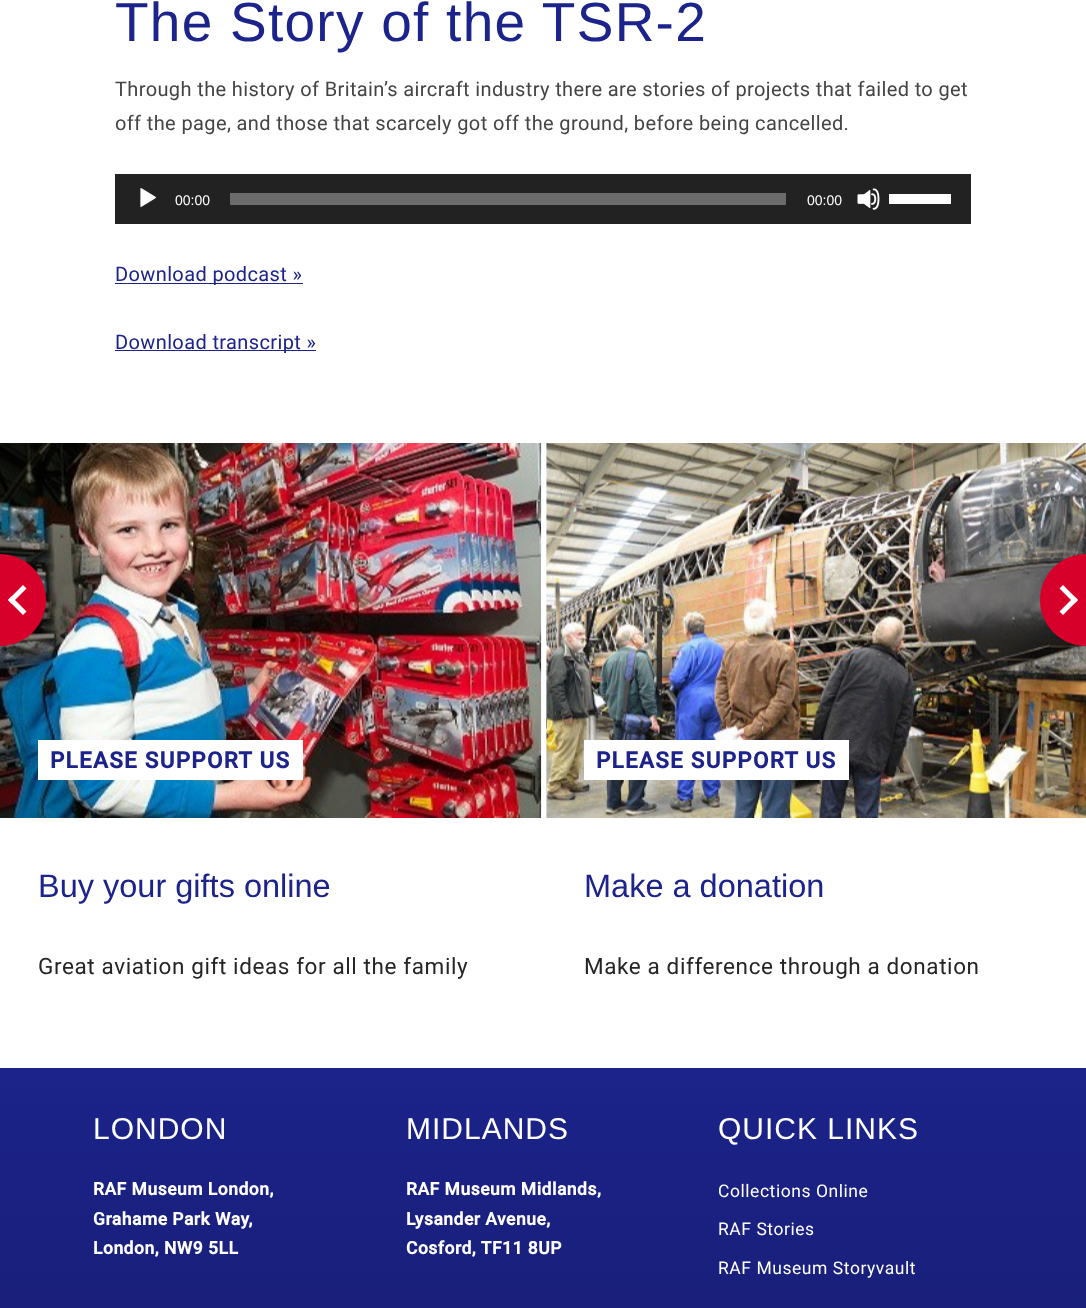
<!DOCTYPE html>
<meta charset="utf-8">
<style>body { margin: 0 } canvas { display: block }</style>
<canvas id="canvas" width="1086" height="1308"></canvas>
<img id="img1" src="img_01.png" hidden>
<img id="img2" src="img_02.png" hidden>
<img id="img3" src="img_03.png" hidden>
<img id="img4" src="img_04.png" hidden>
<script>
window.onload = function () {
	const canvas = document.getElementById("canvas");
	const ctx = canvas.getContext("2d");
	ctx.miterLimit = 4;
	ctx.fontKerning = "normal";
	function txt(s, x, y) {
		ctx.fillText(s, x, y);
	}
	function fill(x, y, w, h) {
		ctx.fillRect(x, y, w, h);
	}
	function img(id, x, y, w, h) {
		ctx.drawImage(document.getElementById(id), x, y, w, h);
	}
	let gradient;

	ctx.fillStyle = "#FFFFFF";
	fill(0, 0, 1086, 1308);
	ctx.fillStyle = "#222222";
	fill(115, 174, 856, 50);
	img("img1", 140, 188, 16, 19);
	ctx.fillStyle = "#6B6B6B";
	fill(230, 193, 556, 12);
	img("img2", 857, 188, 23, 22);
	ctx.fillStyle = "#FFFFFF";
	fill(889, 194, 62, 10);
	ctx.fillStyle = "#1C238A";
	fill(115, 283, 188, 1);
	fill(115, 350, 201, 1);
	img("img3", 0, 443, 542, 375);
	ctx.fillStyle = "#D6002A";
	ctx.beginPath();
	ctx.roundRect(0, 554, 46, 92, [0, 46, 46, 0]);
	ctx.fill();
	ctx.fillStyle = "#FFFFFF";
	ctx.beginPath();
	ctx.moveTo(23, 615);
	ctx.lineTo(8, 600);
	ctx.lineTo(11.5, 596.5);
	ctx.lineTo(26.5, 611.5);
	ctx.closePath();
	ctx.fill();
	ctx.beginPath();
	ctx.moveTo(11.5, 603.5);
	ctx.lineTo(8, 600);
	ctx.lineTo(23, 585);
	ctx.lineTo(26.5, 588.5);
	ctx.closePath();
	ctx.fill();
	img("img4", 546, 443, 540, 375);
	ctx.fillStyle = "#D6002A";
	ctx.beginPath();
	ctx.roundRect(1040, 554, 46, 92, [46, 0, 0, 46]);
	ctx.fill();
	ctx.fillStyle = "#FFFFFF";
	ctx.beginPath();
	ctx.moveTo(1063, 585);
	ctx.lineTo(1078, 600);
	ctx.lineTo(1074.5, 603.5);
	ctx.lineTo(1059.5, 588.5);
	ctx.closePath();
	ctx.fill();
	ctx.beginPath();
	ctx.moveTo(1074.5, 596.5);
	ctx.lineTo(1078, 600);
	ctx.lineTo(1063, 615);
	ctx.lineTo(1059.5, 611.5);
	ctx.closePath();
	ctx.fill();
	fill(38, 740, 265, 40);
	fill(584, 740, 265, 40);
	gradient = ctx.createLinearGradient(543, 1068, 543, 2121);
	gradient.addColorStop(0, "#1C238A");
	gradient.addColorStop(1, "#0D1144");
	ctx.fillStyle = gradient;
	fill(0, 1068, 1086, 240);
	ctx.letterSpacing = "1.25px";
	ctx.font = "55px Liberation Sans";
	ctx.fillStyle = "#1C238A";
	txt("The Story of the TSR-2", 115, 41);
	ctx.letterSpacing = "0.38px";
	ctx.font = "20px Roboto";
	ctx.fillStyle = "#444444";
	txt("Through the history of Britain’s aircraft industry there are stories of projects that failed to get", 115, 96);
	txt("off the page, and those that scarcely got off the ground, before being cancelled.", 115, 130);
	ctx.letterSpacing = "0px";
	ctx.font = "14px Liberation Sans";
	ctx.fillStyle = "#FFFFFF";
	txt("00:00", 175, 205);
	txt("00:00", 807, 205);
	ctx.letterSpacing = "0.38px";
	ctx.font = "20px Roboto";
	ctx.fillStyle = "#1C238A";
	txt("Download podcast »", 115, 281);
	txt("Download transcript »", 115, 349);
	ctx.letterSpacing = "1.25px";
	ctx.font = "bold 22.5px Roboto";
	txt("PLEASE SUPPORT US", 50, 768);
	ctx.letterSpacing = "0px";
	ctx.font = "32.5px Liberation Sans";
	txt("Buy your gifts online", 38, 897);
	ctx.letterSpacing = "0.6px";
	ctx.font = "22.5px Roboto";
	ctx.fillStyle = "#252525";
	txt("Great aviation gift ideas for all the family", 38, 974);
	ctx.letterSpacing = "1.25px";
	ctx.font = "bold 22.5px Roboto";
	ctx.fillStyle = "#1C238A";
	txt("PLEASE SUPPORT US", 596, 768);
	ctx.letterSpacing = "0px";
	ctx.font = "32.5px Liberation Sans";
	txt("Make a donation", 584, 897);
	ctx.letterSpacing = "0.6px";
	ctx.font = "22.5px Roboto";
	ctx.fillStyle = "#252525";
	txt("Make a difference through a donation", 584, 974);
	ctx.letterSpacing = "1px";
	ctx.font = "30px Liberation Sans";
	ctx.fillStyle = "#FFFFFF";
	txt("LONDON", 93, 1139);
	ctx.letterSpacing = "0.5px";
	ctx.font = "bold 17.5px Roboto";
	txt("RAF Museum London,", 93, 1195);
	txt("Grahame Park Way,", 93, 1225);
	txt("London, NW9 5LL", 93, 1254);
	ctx.letterSpacing = "1px";
	ctx.font = "30px Liberation Sans";
	txt("MIDLANDS", 406, 1139);
	ctx.letterSpacing = "0.5px";
	ctx.font = "bold 17.5px Roboto";
	txt("RAF Museum Midlands,", 406, 1195);
	txt("Lysander Avenue,", 406, 1225);
	txt("Cosford, TF11 8UP", 406, 1254);
	ctx.letterSpacing = "1px";
	ctx.font = "30px Liberation Sans";
	txt("QUICK LINKS", 718, 1139);
	ctx.letterSpacing = "0.55px";
	ctx.font = "17.5px Roboto";
	txt("Collections Online", 718, 1197);
	txt("RAF Stories", 718, 1235);
	txt("RAF Museum Storyvault", 718, 1274);
};
</script>
